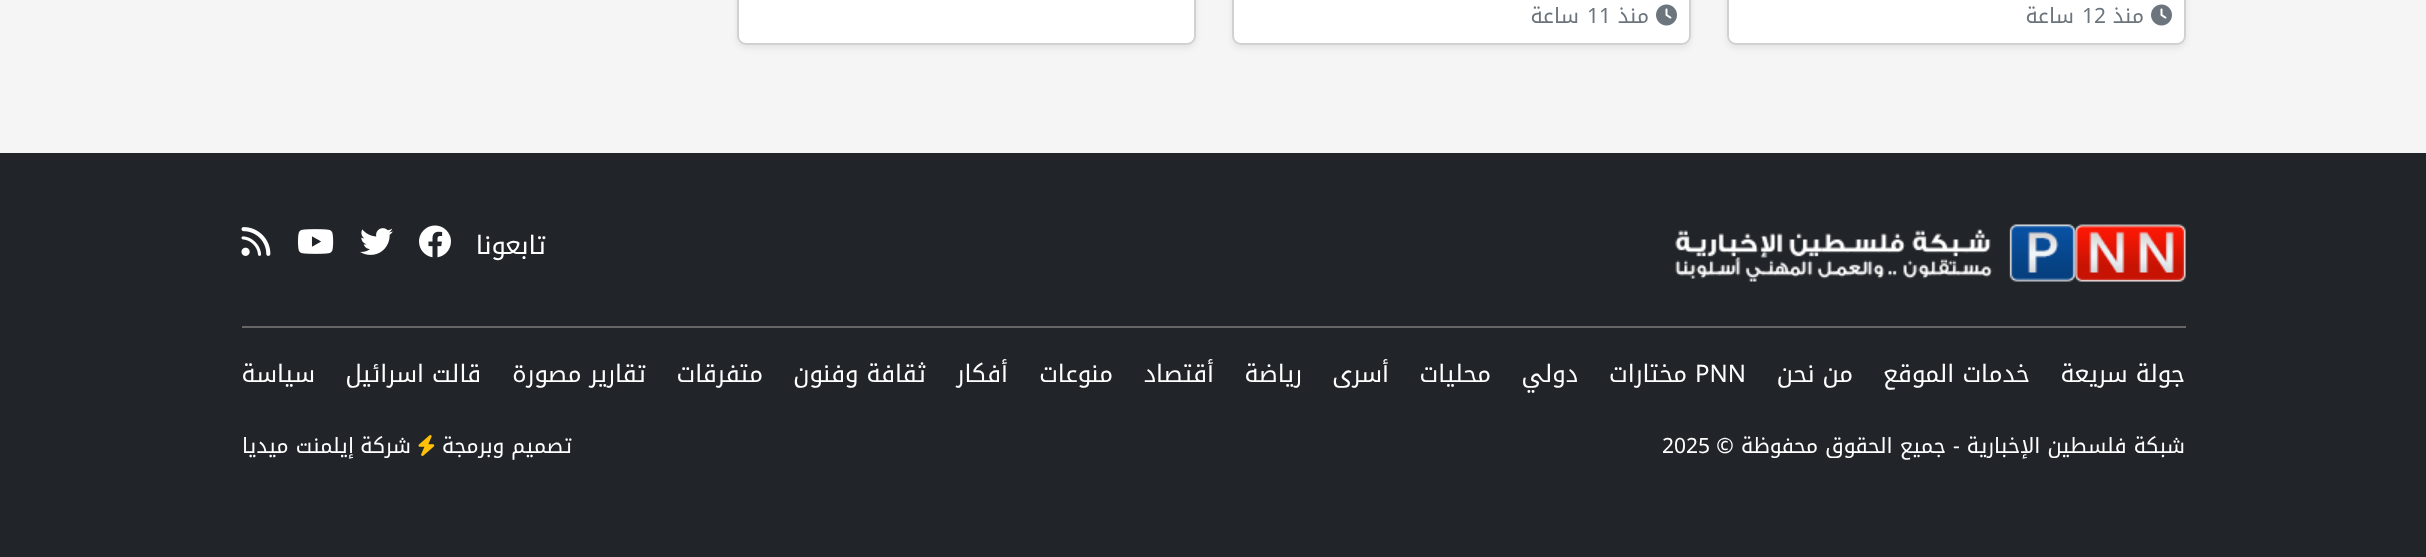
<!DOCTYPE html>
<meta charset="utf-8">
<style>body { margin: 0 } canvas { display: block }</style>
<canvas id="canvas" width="2426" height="557"></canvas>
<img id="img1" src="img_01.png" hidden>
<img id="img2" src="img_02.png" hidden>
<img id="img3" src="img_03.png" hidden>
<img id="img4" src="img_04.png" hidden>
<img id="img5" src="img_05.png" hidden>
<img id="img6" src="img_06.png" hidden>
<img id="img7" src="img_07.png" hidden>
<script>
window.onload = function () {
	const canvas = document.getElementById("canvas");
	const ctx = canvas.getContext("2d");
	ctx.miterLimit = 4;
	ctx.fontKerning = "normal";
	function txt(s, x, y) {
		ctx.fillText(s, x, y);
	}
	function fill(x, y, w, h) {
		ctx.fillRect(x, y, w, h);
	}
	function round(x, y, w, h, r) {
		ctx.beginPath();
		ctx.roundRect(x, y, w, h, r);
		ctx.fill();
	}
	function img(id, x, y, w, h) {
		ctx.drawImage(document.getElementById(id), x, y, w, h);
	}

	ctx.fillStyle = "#F5F5F5";
	fill(0, 0, 2426, 557);
	ctx.fillStyle = "rgba(0, 0, 0, 0.07)";
	ctx.filter = "blur(3px)";
	ctx.beginPath();
	ctx.roundRect(1727, -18, 459, 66, 9);
	ctx.fill();
	ctx.filter = "none";
	ctx.fillStyle = "#FFFFFF";
	round(1727, -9, 459, 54, 9);
	ctx.beginPath();
	ctx.roundRect(1728, -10, 457, 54, 8);
	ctx.strokeStyle = "rgba(0, 0, 0, 0.18)";
	ctx.lineWidth = 2;
	ctx.stroke();
	img("img1", 2151, 4, 21, 22);
	ctx.fillStyle = "rgba(0, 0, 0, 0.07)";
	ctx.filter = "blur(3px)";
	ctx.beginPath();
	ctx.roundRect(1232, -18, 459, 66, 9);
	ctx.fill();
	ctx.filter = "none";
	ctx.fillStyle = "#FFFFFF";
	round(1232, -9, 459, 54, 9);
	ctx.beginPath();
	ctx.roundRect(1233, -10, 457, 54, 8);
	ctx.stroke();
	img("img1", 1656, 4, 21, 22);
	ctx.fillStyle = "rgba(0, 0, 0, 0.07)";
	ctx.filter = "blur(3px)";
	ctx.beginPath();
	ctx.roundRect(737, -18, 459, 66, 9);
	ctx.fill();
	ctx.filter = "none";
	ctx.fillStyle = "#FFFFFF";
	round(737, -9, 459, 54, 9);
	ctx.beginPath();
	ctx.roundRect(738, -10, 457, 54, 8);
	ctx.stroke();
	ctx.fillStyle = "#212529";
	fill(0, 153, 2426, 404);
	img("img2", 1675, 224, 511, 58);
	img("img3", 419, 225, 32, 33);
	img("img4", 360, 228, 33, 27);
	img("img5", 297, 229, 37, 25);
	img("img6", 241, 227, 30, 29);
	ctx.fillStyle = "#666666";
	fill(242, 326, 1944, 2);
	img("img7", 418, 435, 17, 21);
	ctx.direction = "rtl";
	ctx.font = "21px Noto Kufi Arabic";
	ctx.fillStyle = "#6C757D";
	txt("منذ", 2144, 23);
	ctx.direction = "ltr";
	txt("12", 2082, 23);
	ctx.direction = "rtl";
	txt("ساعة", 2074, 23);
	txt("منذ", 1649, 23);
	ctx.direction = "ltr";
	txt("11", 1587, 23);
	ctx.direction = "rtl";
	txt("ساعة", 1579, 23);
	ctx.font = "25.5px Noto Kufi Arabic";
	ctx.fillStyle = "#FFFFFF";
	txt("تابعونا", 546, 254);
	ctx.font = "24px Noto Kufi Arabic";
	txt("جولة سريعة", 2185, 382);
	txt("خدمات الموقع", 2030, 382);
	txt("من نحن", 1853, 382);
	ctx.direction = "ltr";
	txt("PNN", 1695, 382);
	ctx.direction = "rtl";
	txt("مختارات", 1687, 382);
	txt("دولي", 1578, 382);
	txt("محليات", 1491, 382);
	txt("أسرى", 1389, 382);
	txt("رياضة", 1302, 382);
	txt("أقتصاد", 1214, 382);
	txt("منوعات", 1113, 382);
	txt("أفكار", 1008, 382);
	txt("ثقافة وفنون", 926, 382);
	txt("متفرقات", 763, 382);
	txt("تقارير مصورة", 646, 382);
	txt("قالت اسرائيل", 481, 382);
	txt("سياسة", 315, 382);
	ctx.font = "21px Noto Kufi Arabic";
	txt("شبكة فلسطين الإخبارية - جميع الحقوق محفوظة ©", 2185, 453);
	ctx.direction = "ltr";
	txt("2025", 1662, 453);
	ctx.direction = "rtl";
	txt("تصميم وبرمجة", 572, 453);
	txt("شركة", 411, 453);
	txt("إيلمنت ميديا", 354, 453);
};
</script>
